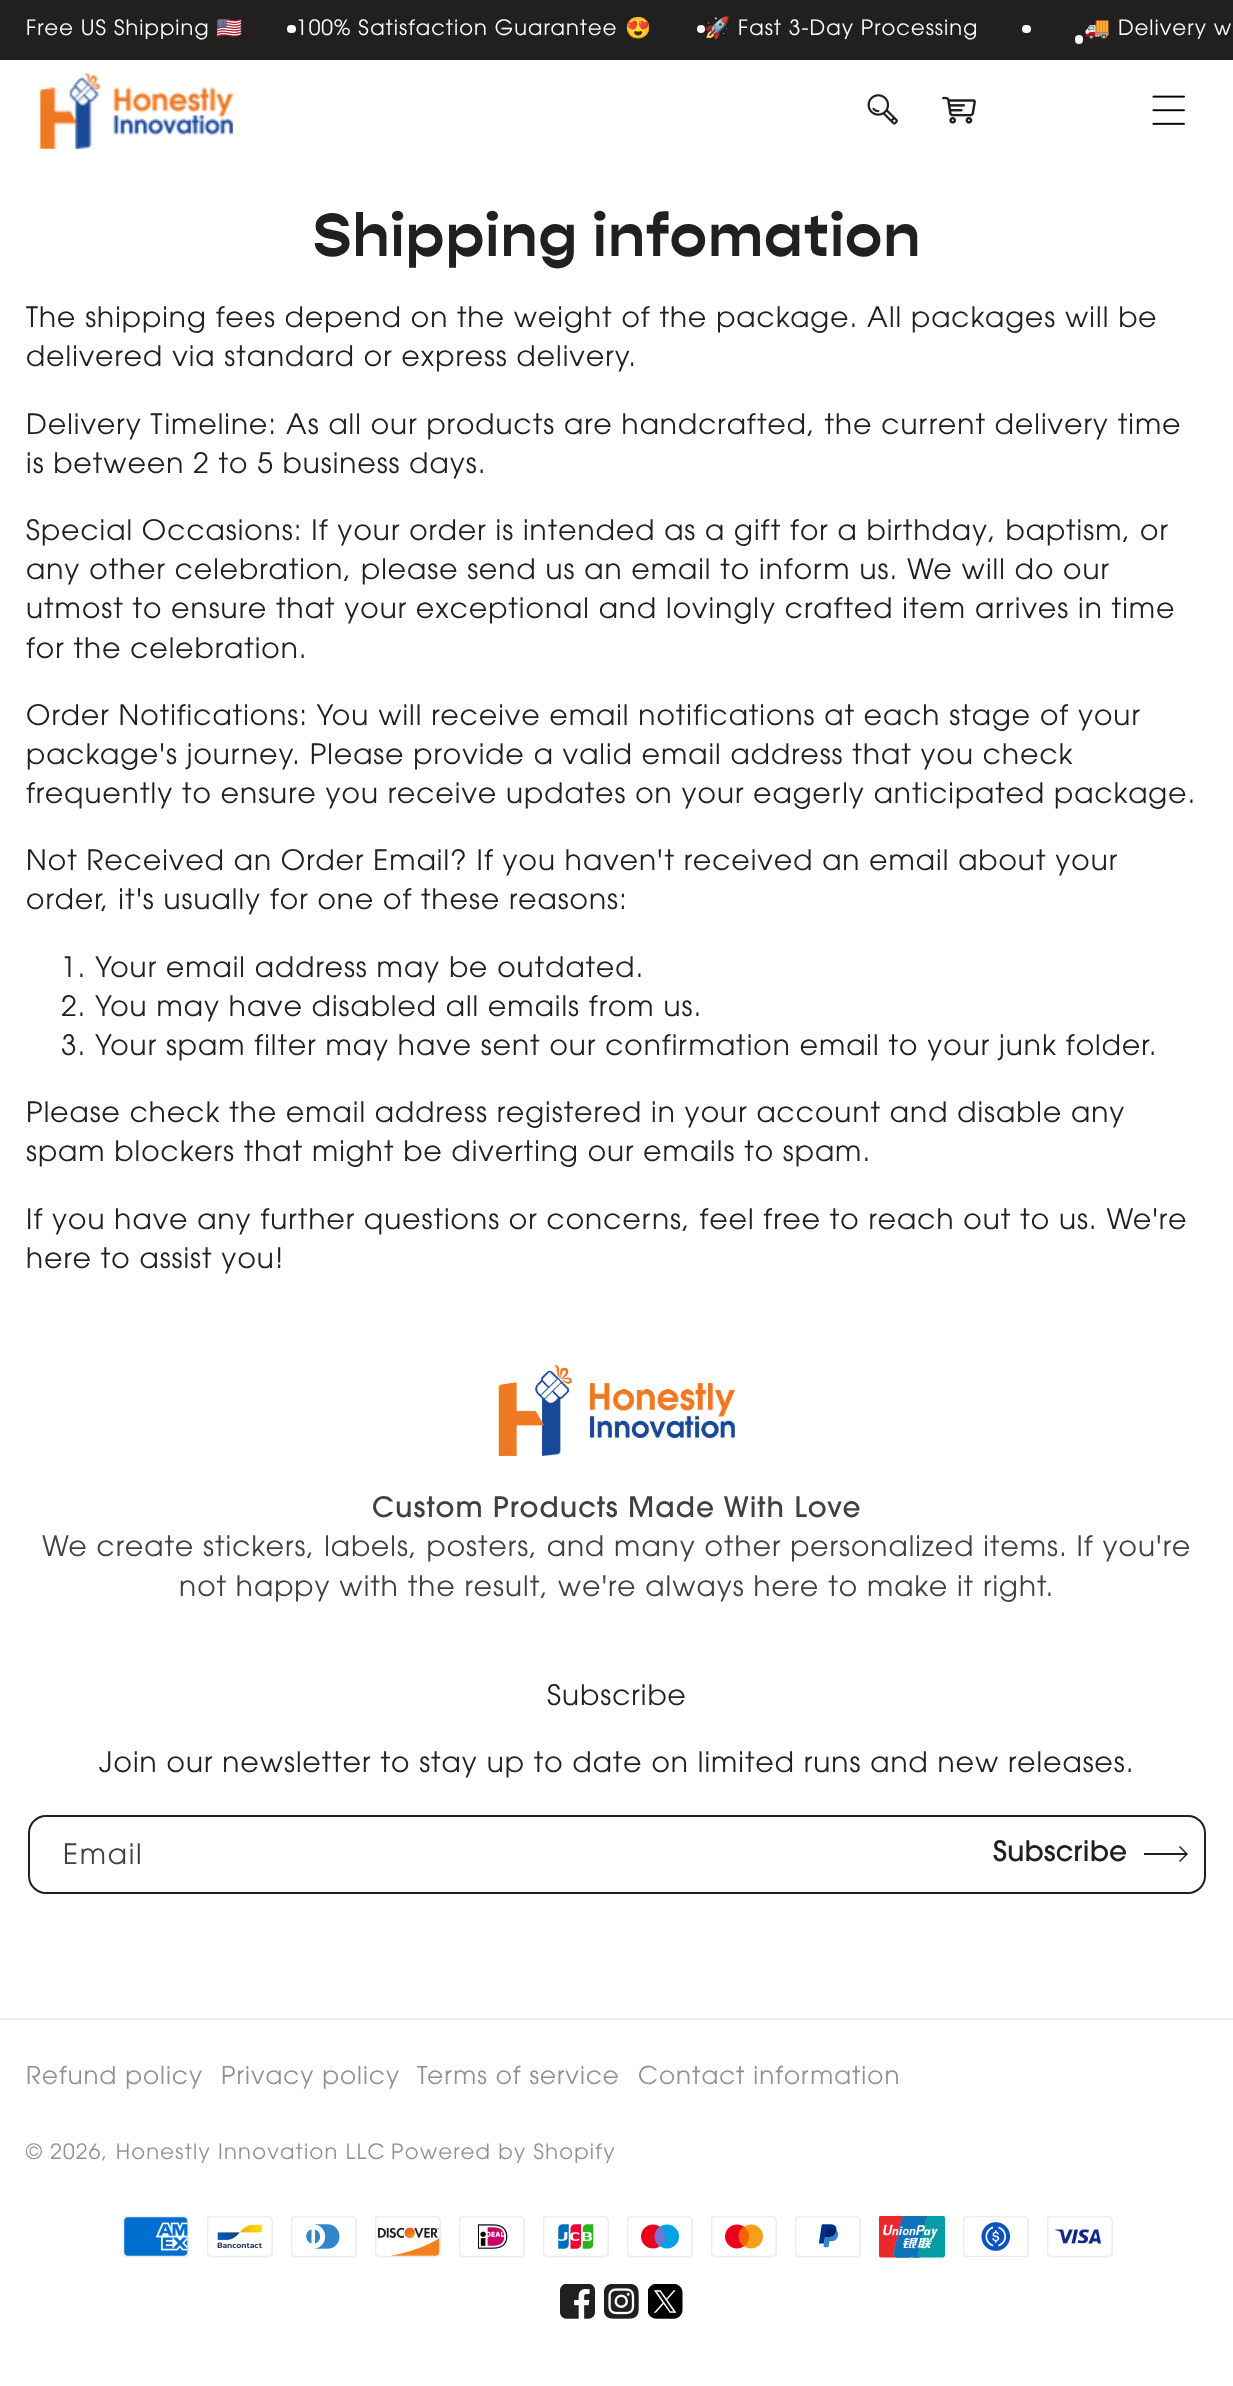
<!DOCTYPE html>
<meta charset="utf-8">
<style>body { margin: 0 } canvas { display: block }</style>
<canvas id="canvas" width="1233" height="2386"></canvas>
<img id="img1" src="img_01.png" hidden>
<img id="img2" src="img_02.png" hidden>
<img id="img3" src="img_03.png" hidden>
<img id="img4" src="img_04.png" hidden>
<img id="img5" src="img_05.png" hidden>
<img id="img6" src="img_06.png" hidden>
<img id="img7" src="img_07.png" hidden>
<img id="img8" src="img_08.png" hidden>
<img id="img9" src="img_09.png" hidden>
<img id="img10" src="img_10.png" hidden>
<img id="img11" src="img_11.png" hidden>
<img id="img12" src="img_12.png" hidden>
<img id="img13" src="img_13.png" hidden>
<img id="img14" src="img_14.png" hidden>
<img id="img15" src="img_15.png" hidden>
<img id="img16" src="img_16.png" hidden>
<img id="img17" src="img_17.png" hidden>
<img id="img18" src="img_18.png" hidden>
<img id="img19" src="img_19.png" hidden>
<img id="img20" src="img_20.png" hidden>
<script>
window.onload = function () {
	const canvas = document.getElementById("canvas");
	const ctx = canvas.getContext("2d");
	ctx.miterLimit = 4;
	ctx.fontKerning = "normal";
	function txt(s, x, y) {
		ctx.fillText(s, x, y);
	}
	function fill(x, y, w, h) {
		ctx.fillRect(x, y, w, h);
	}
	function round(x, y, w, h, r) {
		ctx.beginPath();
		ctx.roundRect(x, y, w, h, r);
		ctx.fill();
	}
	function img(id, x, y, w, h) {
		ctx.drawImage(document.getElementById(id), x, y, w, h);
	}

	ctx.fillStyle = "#FFFFFF";
	fill(0, 0, 1233, 2386);
	ctx.fillStyle = "#22201F";
	fill(0, 0, 1233, 60);
	ctx.fillStyle = "#FFFFFF";
	round(287, 25, 9, 8, 4);
	ctx.beginPath();
	ctx.arc(701, 29, 4, 0, Math.PI * 2);
	ctx.fill();
	round(1022, 25, 9, 8, 4);
	round(1075, 35, 8, 9, 4);
	img("img1", 39, 73, 194, 76);
	img("img2", 867, 94, 31, 31);
	img("img3", 942, 96, 34, 28);
	img("img4", 1152, 95, 33, 30);
	img("img5", 498, 1364, 237, 92);
	ctx.beginPath();
	ctx.roundRect(29, 1816, 1176, 77, 17);
	ctx.strokeStyle = "#22201F";
	ctx.lineWidth = 2;
	ctx.stroke();
	ctx.fillStyle = "#22201F";
	ctx.beginPath();
	ctx.moveTo(1144, 1855);
	ctx.lineTo(1185, 1855);
	ctx.lineTo(1179, 1861);
	ctx.lineTo(1180, 1862);
	ctx.lineTo(1188, 1854);
	ctx.lineTo(1180, 1846);
	ctx.lineTo(1179, 1847);
	ctx.lineTo(1185, 1853);
	ctx.lineTo(1144, 1853);
	ctx.closePath();
	ctx.fill();
	ctx.fillStyle = "#EBEBEB";
	fill(0, 2018, 1233, 2);
	img("img6", 123, 2216, 66, 42);
	img("img7", 207, 2216, 66, 42);
	img("img8", 291, 2216, 66, 42);
	img("img9", 375, 2216, 66, 42);
	img("img10", 459, 2216, 66, 42);
	img("img11", 543, 2216, 66, 42);
	img("img12", 627, 2216, 66, 42);
	img("img13", 711, 2216, 66, 42);
	img("img14", 795, 2216, 66, 42);
	img("img15", 879, 2216, 66, 42);
	img("img16", 963, 2216, 66, 41);
	img("img17", 1047, 2216, 66, 42);
	img("img18", 560, 2284, 35, 35);
	img("img19", 604, 2284, 35, 35);
	img("img20", 648, 2284, 35, 35);
	ctx.letterSpacing = "1.05px";
	ctx.font = "300 21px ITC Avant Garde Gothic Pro";
	ctx.fillStyle = "#FFFFFF";
	txt("Free US Shipping", 26, 35);
	ctx.font = "21px Noto Color Emoji";
	txt("🇺🇸", 216, 35);
	ctx.font = "300 21px ITC Avant Garde Gothic Pro";
	txt("100% Satisfaction Guarantee", 296, 35);
	ctx.font = "21px Noto Color Emoji";
	txt("😍", 625, 35);
	txt("🚀", 704, 35);
	ctx.font = "300 21px ITC Avant Garde Gothic Pro";
	txt("Fast 3-Day Processing", 738, 35);
	ctx.font = "21px Noto Color Emoji";
	txt("🚚", 1084, 35);
	ctx.font = "300 21px ITC Avant Garde Gothic Pro";
	txt("Delivery w", 1118, 35);
	ctx.font = "bold 61.25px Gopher";
	ctx.fillStyle = "#22201F";
	txt("Shipping infomation", 313, 256);
	ctx.font = "300 28px ITC Avant Garde Gothic Pro";
	txt("The shipping fees depend on the weight of the package. All packages will be", 26, 327);
	txt("delivered via standard or express delivery.", 26, 366);
	txt("Delivery Timeline: As all our products are handcrafted, the current delivery time", 26, 434);
	txt("is between 2 to 5 business days.", 26, 473);
	txt("Special Occasions: If your order is intended as a gift for a birthday, baptism, or", 26, 540);
	txt("any other celebration, please send us an email to inform us. We will do our", 26, 579);
	txt("utmost to ensure that your exceptional and lovingly crafted item arrives in time", 26, 618);
	txt("for the celebration.", 26, 658);
	txt("Order Notifications: You will receive email notifications at each stage of your", 26, 725);
	txt("package's journey. Please provide a valid email address that you check", 26, 764);
	txt("frequently to ensure you receive updates on your eagerly anticipated package.", 26, 803);
	txt("Not Received an Order Email? If you haven't received an email about your", 26, 870);
	txt("order, it's usually for one of these reasons:", 26, 909);
	txt("1. Your email address may be outdated.", 61, 977);
	txt("2. You may have disabled all emails from us.", 61, 1016);
	txt("3. Your spam filter may have sent our confirmation email to your junk folder.", 61, 1055);
	txt("Please check the email address registered in your account and disable any", 26, 1122);
	txt("spam blockers that might be diverting our emails to spam.", 26, 1161);
	txt("If you have any further questions or concerns, feel free to reach out to us. We're", 26, 1229);
	txt("here to assist you!", 26, 1268);
	ctx.font = "500 28px ITC Avant Garde Gothic Pro";
	ctx.fillStyle = "#404040";
	txt("Custom Products Made With Love", 372, 1517);
	ctx.font = "300 28px ITC Avant Garde Gothic Pro";
	txt("We create stickers, labels, posters, and many other personalized items. If you're", 42, 1556);
	txt("not happy with the result, we're always here to make it right.", 179, 1596);
	ctx.fillStyle = "#22201F";
	txt("Subscribe", 547, 1705);
	txt("Join our newsletter to stay up to date on limited runs and new releases.", 99, 1772);
	ctx.letterSpacing = "1.75px";
	ctx.fillStyle = "#404040";
	txt("Email", 63, 1864);
	ctx.letterSpacing = "0px";
	ctx.font = "500 28px ITC Avant Garde Gothic Pro";
	ctx.fillStyle = "#22201F";
	txt("Subscribe", 993, 1861);
	ctx.letterSpacing = "1.05px";
	ctx.font = "300 24.5px ITC Avant Garde Gothic Pro";
	ctx.fillStyle = "#91908F";
	txt("Refund policy", 26, 2084);
	txt("Privacy policy", 221, 2084);
	txt("Terms of service", 417, 2084);
	txt("Contact information", 638, 2084);
	ctx.letterSpacing = "1.25px";
	ctx.font = "300 21px ITC Avant Garde Gothic Pro";
	txt("© 2026, Honestly Innovation LLC", 26, 2159);
	txt("Powered by Shopify", 391, 2159);
};
</script>
